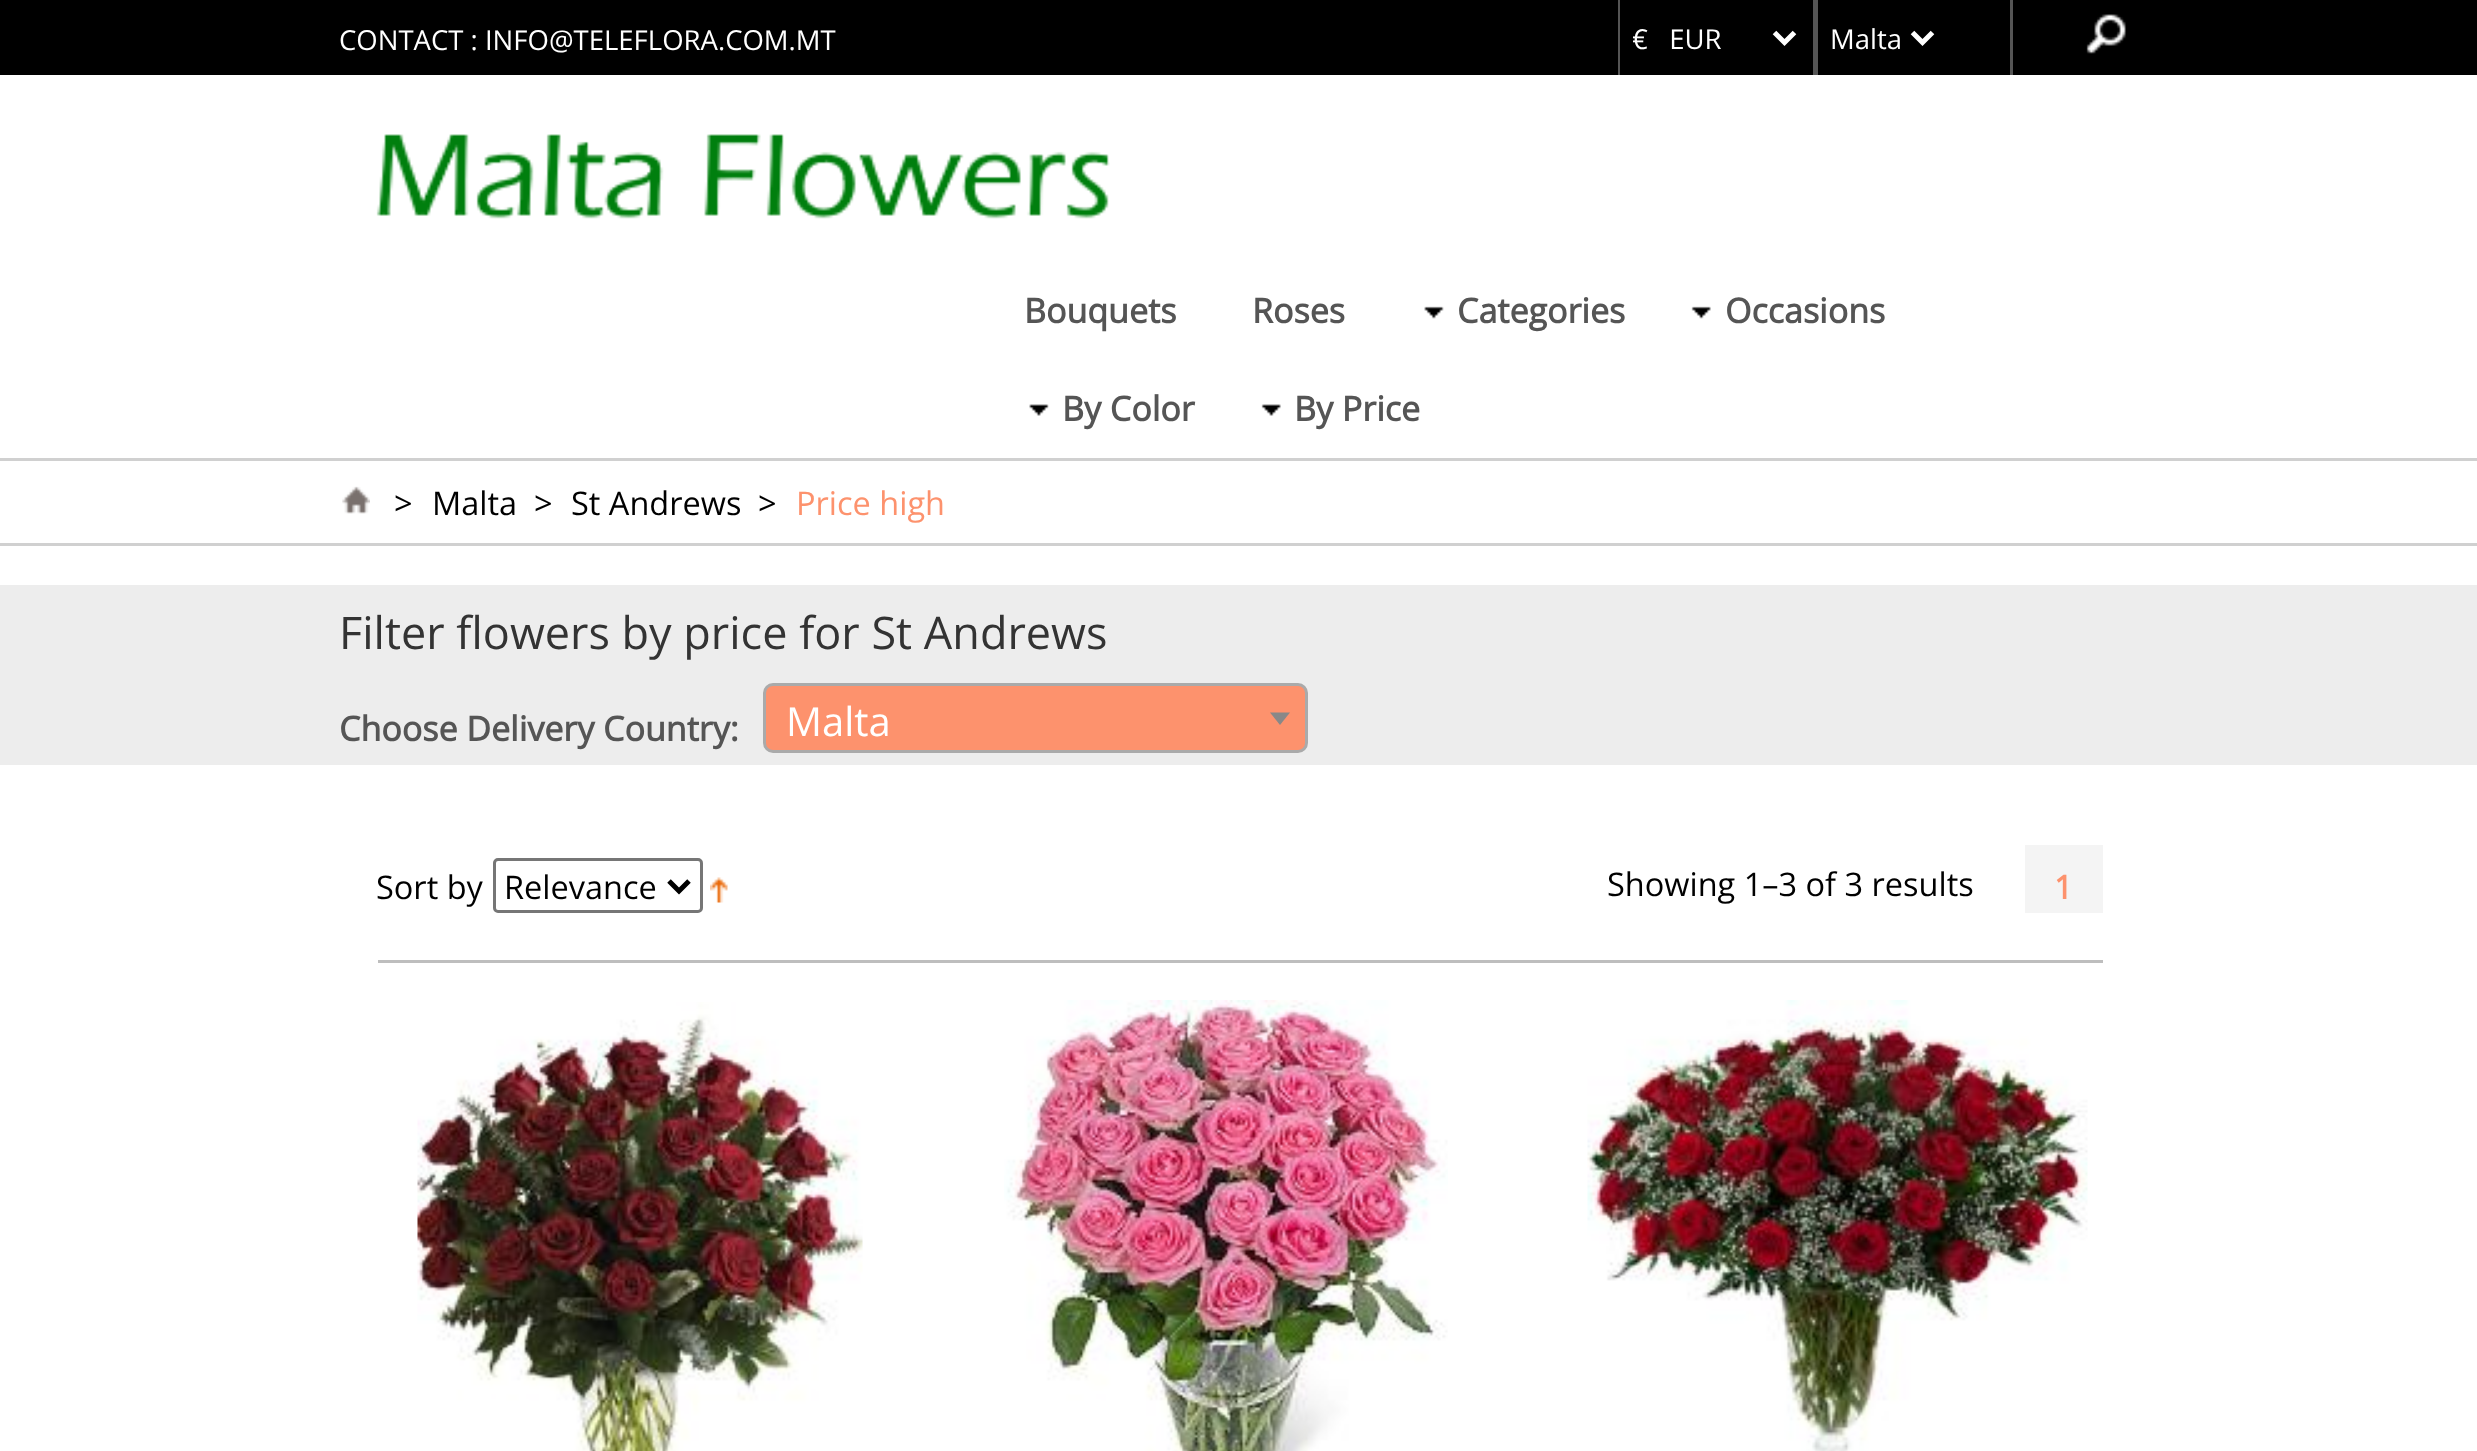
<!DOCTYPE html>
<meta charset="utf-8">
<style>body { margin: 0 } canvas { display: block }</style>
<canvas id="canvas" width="2477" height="1451"></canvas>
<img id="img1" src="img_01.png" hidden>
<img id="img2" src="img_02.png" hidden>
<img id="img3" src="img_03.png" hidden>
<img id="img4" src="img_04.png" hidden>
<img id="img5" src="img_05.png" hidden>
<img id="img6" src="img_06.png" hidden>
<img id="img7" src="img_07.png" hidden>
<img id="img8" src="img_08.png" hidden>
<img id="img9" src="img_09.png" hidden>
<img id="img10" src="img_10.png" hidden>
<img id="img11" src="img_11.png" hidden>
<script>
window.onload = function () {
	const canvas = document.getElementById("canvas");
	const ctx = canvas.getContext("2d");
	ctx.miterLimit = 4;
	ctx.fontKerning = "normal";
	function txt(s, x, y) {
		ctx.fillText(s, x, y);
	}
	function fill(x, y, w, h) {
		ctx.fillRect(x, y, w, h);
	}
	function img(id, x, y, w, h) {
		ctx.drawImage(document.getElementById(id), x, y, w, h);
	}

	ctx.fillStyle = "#FFFFFF";
	fill(0, 0, 2477, 1451);
	ctx.fillStyle = "#000000";
	fill(0, 0, 2477, 75);
	ctx.fillStyle = "#555555";
	fill(1813, 0, 5, 75);
	fill(1618, 0, 2, 75);
	ctx.beginPath();
	ctx.moveTo(1774.5, 32.5);
	ctx.lineTo(1784.5, 42.5);
	ctx.lineTo(1794.5, 32.5);
	ctx.strokeStyle = "#FFFFFF";
	ctx.lineWidth = 5;
	ctx.stroke();
	fill(2010, 0, 3, 75);
	ctx.beginPath();
	ctx.moveTo(1912.5, 32.5);
	ctx.lineTo(1922.5, 42.5);
	ctx.lineTo(1932.5, 32.5);
	ctx.stroke();
	img("img1", 2086, 14, 40, 40);
	img("img2", 376, 134, 734, 85);
	img("img3", 1424, 306, 20, 13);
	img("img4", 1691, 306, 20, 13);
	img("img5", 1029, 404, 20, 12);
	img("img6", 1261, 404, 20, 12);
	ctx.fillStyle = "#D0D0D0";
	fill(0, 458, 2477, 3);
	fill(0, 543, 2477, 3);
	img("img7", 342, 486, 28, 28);
	ctx.fillStyle = "#EDEDED";
	fill(0, 585, 2477, 180);
	ctx.fillStyle = "#FD926D";
	ctx.beginPath();
	ctx.roundRect(764.5, 684.5, 542, 67, 8.5);
	ctx.fill();
	ctx.strokeStyle = "#AAAAAA";
	ctx.lineWidth = 3;
	ctx.stroke();
	ctx.fillStyle = "#888888";
	ctx.beginPath();
	ctx.moveTo(1270, 712.5);
	ctx.lineTo(1290, 712.5);
	ctx.lineTo(1280, 725);
	ctx.closePath();
	ctx.fill();
	ctx.fillStyle = "#BEBEBE";
	fill(378, 960, 1725, 3);
	ctx.beginPath();
	ctx.roundRect(494.5, 859.5, 207, 52, 3.5);
	ctx.strokeStyle = "#767676";
	ctx.stroke();
	ctx.beginPath();
	ctx.moveTo(669, 881);
	ctx.lineTo(679, 891);
	ctx.lineTo(689, 881);
	ctx.strokeStyle = "#000000";
	ctx.lineWidth = 5;
	ctx.stroke();
	img("img8", 710, 877, 18, 26);
	ctx.fillStyle = "#F4F4F4";
	fill(2025, 845, 78, 68);
	img("img9", 417, 1002, 446, 449);
	img("img10", 1004, 1000, 444, 451);
	img("img11", 1587, 1000, 501, 451);
	ctx.font = "27.5px Open Sans";
	ctx.fillStyle = "#FFFFFF";
	txt("CONTACT : INFO@TELEFLORA.COM.MT", 339, 50);
	ctx.save();
	ctx.beginPath();
	ctx.rect(1633, 18, 132, 42);
	ctx.clip();
	txt("€   EUR", 1632, 49);
	ctx.restore();
	txt("Malta", 1830, 49);
	ctx.font = "bold 34px Open Sans";
	ctx.fillStyle = "#555555";
	txt("Bouquets", 1024, 323);
	txt("Roses", 1252, 323);
	txt("Categories", 1457, 323);
	txt("Occasions", 1725, 323);
	txt("By Color", 1062, 421);
	txt("By Price", 1294, 421);
	ctx.font = "32.5px Open Sans";
	ctx.fillStyle = "#000000";
	txt(">", 394, 515);
	txt("Malta", 432, 515);
	txt(">", 534, 515);
	txt("St Andrews", 571, 515);
	txt(">", 758, 515);
	ctx.fillStyle = "#FD926D";
	txt("Price high", 796, 515);
	ctx.font = "45px Open Sans";
	ctx.fillStyle = "#333333";
	txt("Filter flowers by price for St Andrews", 339, 649);
	ctx.font = "bold 34px Open Sans";
	ctx.fillStyle = "#555555";
	txt("Choose Delivery Country:", 339, 741);
	ctx.font = "40px Open Sans";
	ctx.fillStyle = "#FFFFFF";
	txt("Malta", 786, 736);
	ctx.font = "32.5px Open Sans";
	ctx.fillStyle = "#000000";
	txt("Sort by", 376, 899);
	txt("Relevance", 504, 899);
	txt("Showing 1–3 of 3 results", 1607, 896);
	ctx.font = "bold 32.5px Open Sans";
	ctx.fillStyle = "#FD926D";
	txt("1", 2054, 899);
};
</script>
